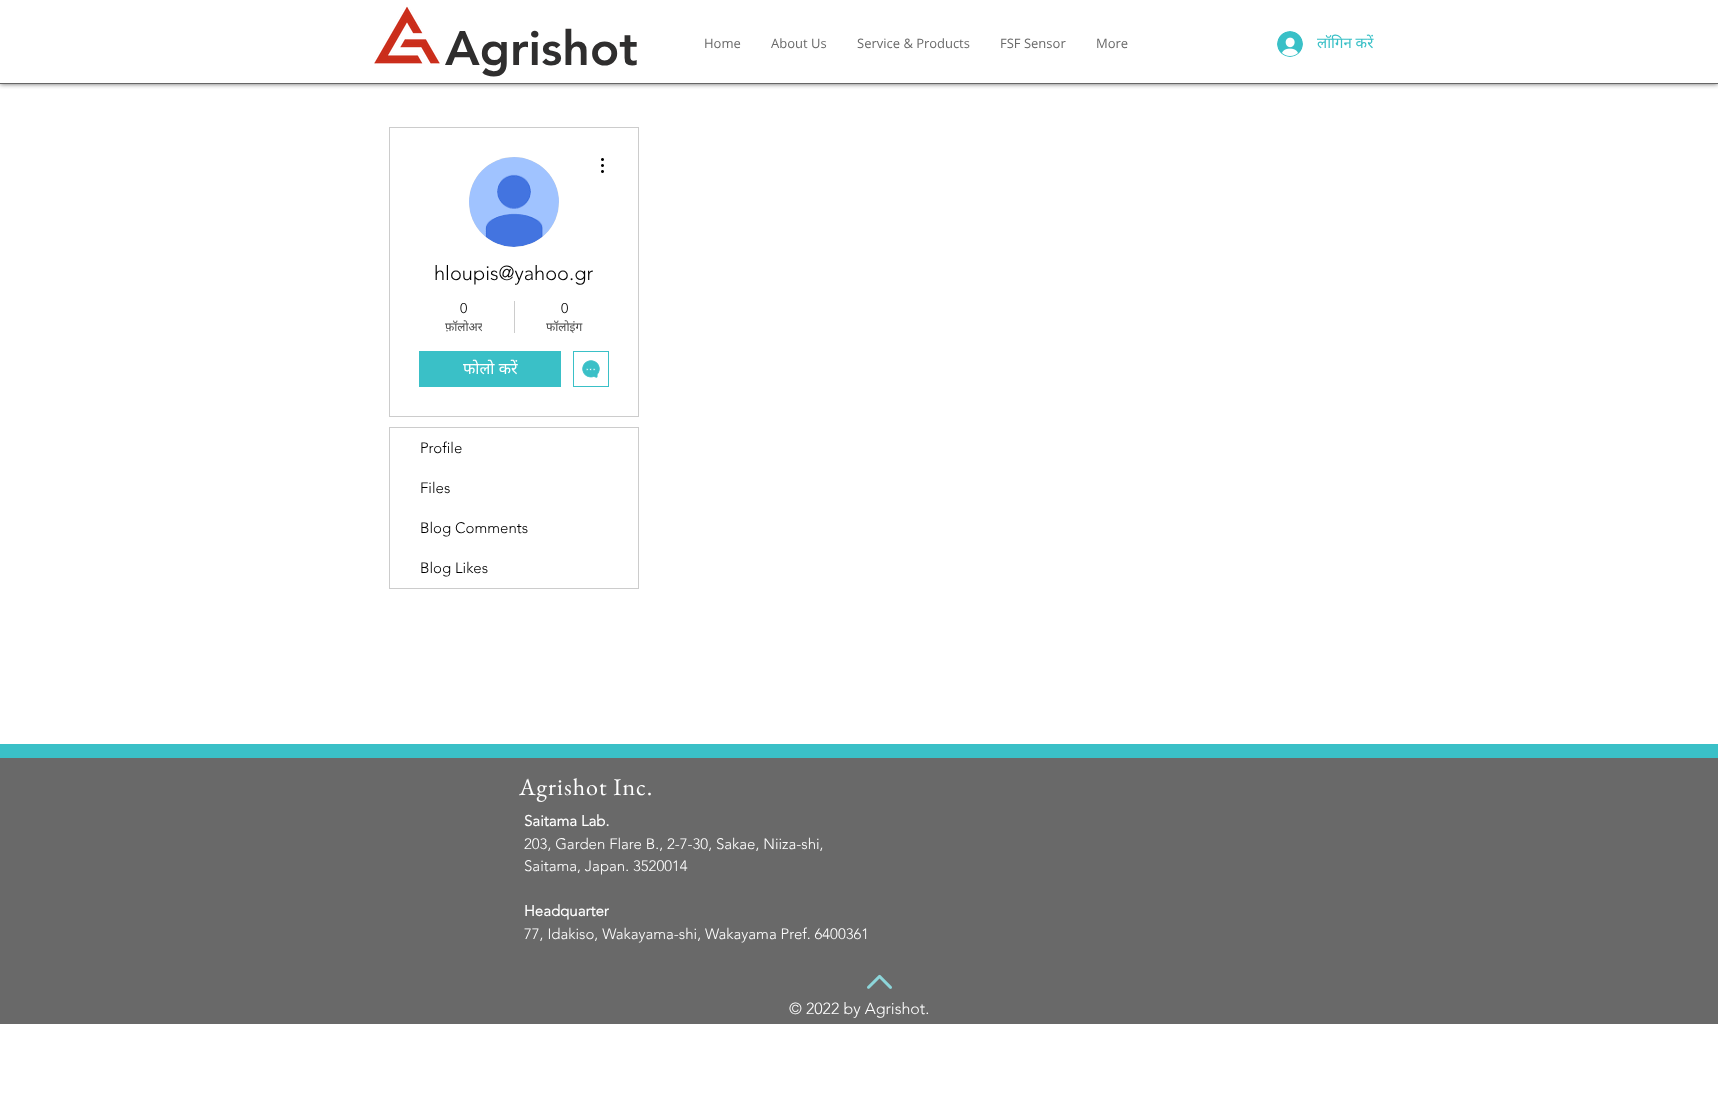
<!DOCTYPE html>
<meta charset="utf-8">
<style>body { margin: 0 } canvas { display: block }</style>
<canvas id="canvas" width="1718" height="1109"></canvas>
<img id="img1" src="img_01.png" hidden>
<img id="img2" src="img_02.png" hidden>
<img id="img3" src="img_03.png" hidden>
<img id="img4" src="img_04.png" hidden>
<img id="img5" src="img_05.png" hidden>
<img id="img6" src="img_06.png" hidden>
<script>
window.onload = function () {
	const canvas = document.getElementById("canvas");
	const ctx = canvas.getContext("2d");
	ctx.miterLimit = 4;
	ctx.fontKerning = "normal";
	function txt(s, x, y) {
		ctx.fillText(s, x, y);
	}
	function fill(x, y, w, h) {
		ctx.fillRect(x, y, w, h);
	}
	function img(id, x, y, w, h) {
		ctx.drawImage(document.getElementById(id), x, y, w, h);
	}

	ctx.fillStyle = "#FFFFFF";
	fill(0, 0, 1718, 1109);
	ctx.save();
	ctx.beginPath();
	ctx.rect(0, 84, 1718, 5);
	ctx.clip();
	ctx.fillStyle = "rgba(0, 0, 0, 0.6)";
	ctx.filter = "blur(2.5px)";
	ctx.beginPath();
	ctx.rect(0, 0, 1718, 84);
	ctx.fill();
	ctx.filter = "none";
	ctx.restore();
	ctx.fillStyle = "#666666";
	fill(0, 83, 1718, 1);
	img("img1", 374, 6, 66, 58);
	img("img2", 1277, 31, 26, 26);
	ctx.strokeStyle = "#CCCCCC";
	ctx.strokeRect(389.5, 127.5, 249, 289);
	ctx.fillStyle = "#D8D8D8";
	ctx.beginPath();
	ctx.arc(514, 202, 45, 0, Math.PI * 2);
	ctx.fill();
	img("img3", 469, 157, 90, 90);
	img("img4", 601, 158, 3, 15);
	ctx.fillStyle = "#CCCCCC";
	fill(514, 301, 1, 32);
	ctx.fillStyle = "#3AC0C7";
	fill(419, 351, 142, 36);
	ctx.strokeStyle = "#3AC0C7";
	ctx.strokeRect(573.5, 351.5, 35, 35);
	img("img5", 582, 360, 18, 18);
	ctx.strokeStyle = "#CCCCCC";
	ctx.strokeRect(389.5, 427.5, 249, 161);
	ctx.fillStyle = "#696969";
	fill(0, 758, 1718, 266);
	ctx.fillStyle = "#3AC0C7";
	fill(0, 744, 1718, 14);
	img("img6", 867, 974, 25, 15);
	ctx.font = "900 48px 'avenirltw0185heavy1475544'";
	ctx.fillStyle = "#2F2E2E";
	txt("Agrishot", 445, 65);
	ctx.font = "13px Open Sans";
	ctx.fillStyle = "#696969";
	txt("Home", 704, 48);
	txt("About Us", 771, 48);
	txt("Service & Products", 857, 48);
	txt("FSF Sensor", 1000, 48);
	txt("More", 1096, 48);
	ctx.font = "15px Noto Sans";
	ctx.fillStyle = "#3AC0C7";
	txt("लॉगिन करें", 1317, 48);
	ctx.font = "300 20px 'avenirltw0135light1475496'";
	ctx.fillStyle = "#000000";
	txt("hloupis@yahoo.gr", 434, 280);
	ctx.font = "300 14px 'avenirltw0135light1475496'";
	txt("0", 460, 313);
	ctx.save();
	ctx.beginPath();
	ctx.rect(445, 319, 37, 16);
	ctx.clip();
	ctx.font = "12px Noto Sans";
	ctx.fillStyle = "#4D4D4D";
	txt("फ़ॉलोअर", 445, 331);
	ctx.restore();
	txt("0", 561, 313);
	ctx.save();
	ctx.beginPath();
	ctx.rect(546, 319, 37, 16);
	ctx.clip();
	ctx.font = "12px Noto Sans";
	ctx.fillStyle = "#4D4D4D";
	txt("फॉलोइंग", 546, 331);
	ctx.restore();
	ctx.font = "16px Noto Sans";
	ctx.fillStyle = "#FFFFFF";
	txt("फोलो करें", 463, 374);
	ctx.font = "300 15px 'avenirltw0135light1475496'";
	ctx.fillStyle = "#000000";
	txt("Profile", 420, 453);
	txt("Files", 420, 493);
	txt("Blog Comments", 420, 533);
	txt("Blog Likes", 420, 573);
	ctx.letterSpacing = "1px";
	ctx.font = "24px EB Garamond";
	ctx.fillStyle = "#FFFFFF";
	txt("Agrishot Inc.", 519, 795);
	ctx.letterSpacing = "0px";
	ctx.font = "bold 15px 'avenirltw0135light1475496'";
	txt("Saitama Lab.", 524, 826);
	ctx.font = "300 15px 'avenirltw0135light1475496'";
	txt("203, Garden Flare B., 2-7-30, Sakae, Niiza-shi,", 524, 849);
	txt("Saitama, Japan. 3520014", 524, 871);
	ctx.font = "bold 15px 'avenirltw0135light1475496'";
	txt("Headquarter", 524, 916);
	ctx.font = "300 15px 'avenirltw0135light1475496'";
	txt("77, Idakiso, Wakayama-shi, Wakayama Pref. 6400361", 524, 939);
	ctx.font = "300 16px 'avenirltw0135light1475496'";
	txt("© 2022 by Agrishot.", 789, 1014);
};
</script>
